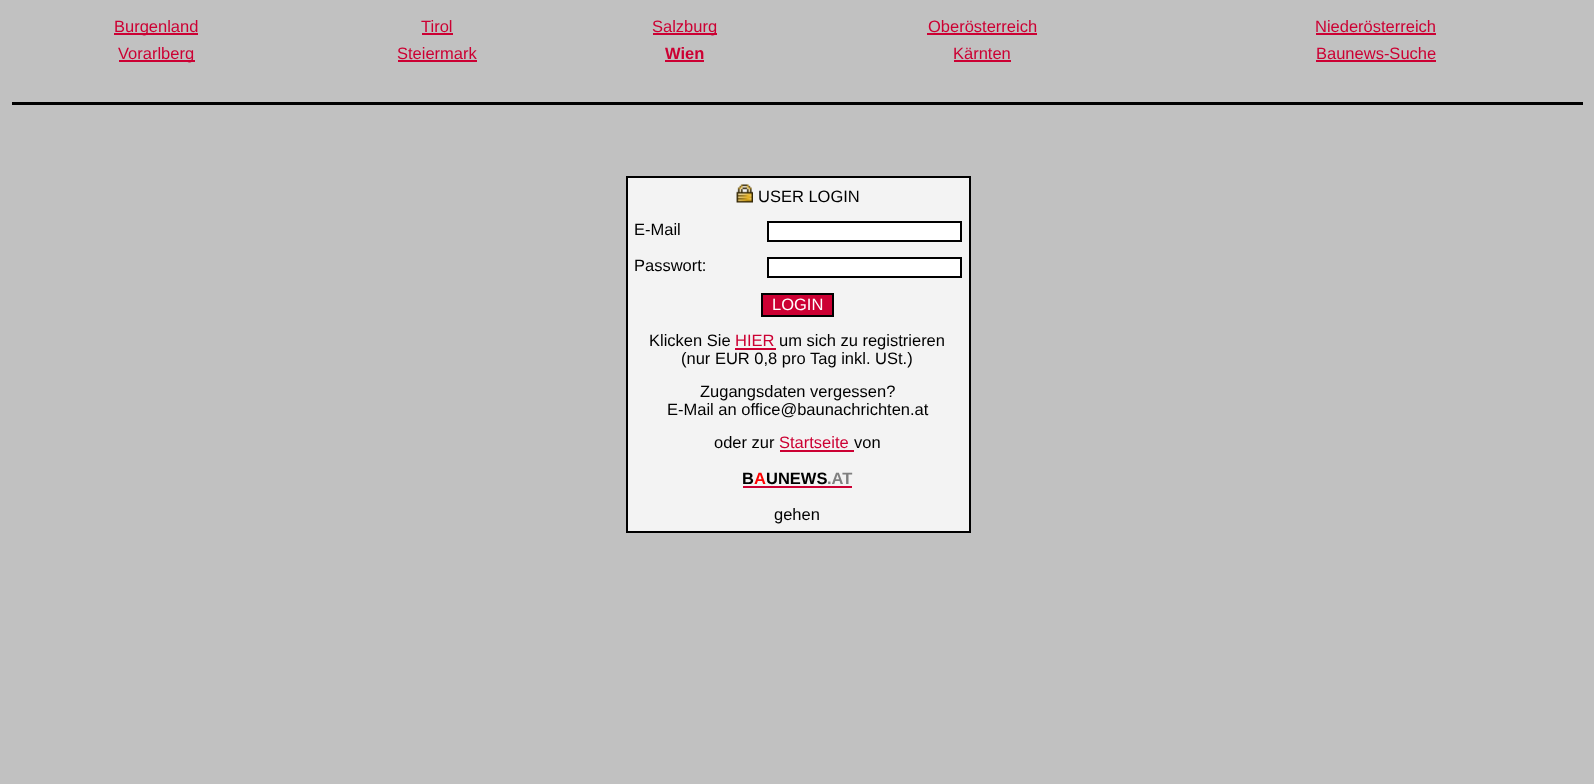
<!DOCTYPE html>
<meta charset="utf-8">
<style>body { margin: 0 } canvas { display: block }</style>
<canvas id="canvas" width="1594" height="784"></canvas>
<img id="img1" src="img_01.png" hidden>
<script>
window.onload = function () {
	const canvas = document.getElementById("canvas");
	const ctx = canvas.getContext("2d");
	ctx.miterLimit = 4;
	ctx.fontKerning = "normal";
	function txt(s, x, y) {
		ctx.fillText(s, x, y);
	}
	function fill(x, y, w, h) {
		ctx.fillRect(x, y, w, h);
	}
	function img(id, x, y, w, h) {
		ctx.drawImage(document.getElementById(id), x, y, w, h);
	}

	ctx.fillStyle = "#C1C1C1";
	fill(0, 0, 1594, 784);
	ctx.fillStyle = "#CC0033";
	fill(114, 33, 84, 2);
	fill(422, 33, 31, 2);
	fill(653, 33, 64, 2);
	fill(927, 33, 110, 2);
	fill(1316, 33, 120, 2);
	fill(119, 60, 76, 2);
	fill(398, 60, 79, 2);
	fill(665, 60, 39, 2);
	fill(954, 60, 57, 2);
	fill(1316, 60, 120, 2);
	ctx.fillStyle = "#000000";
	fill(12, 102, 1571, 3);
	ctx.fillStyle = "#F3F3F3";
	ctx.beginPath();
	ctx.rect(627, 177, 343, 355);
	ctx.fill();
	ctx.strokeStyle = "#000000";
	ctx.lineWidth = 2;
	ctx.stroke();
	img("img1", 736, 184, 17, 19);
	ctx.fillStyle = "#FFFFFF";
	ctx.beginPath();
	ctx.rect(768, 222, 193, 19);
	ctx.fill();
	ctx.stroke();
	ctx.beginPath();
	ctx.rect(768, 258, 193, 19);
	ctx.fill();
	ctx.stroke();
	ctx.fillStyle = "#CC0033";
	ctx.beginPath();
	ctx.rect(762, 294, 71, 22);
	ctx.fill();
	ctx.stroke();
	fill(735, 348, 41, 2);
	fill(780, 450, 74, 2);
	fill(743, 486, 109, 2);
	ctx.font = "16.5px Liberation Sans";
	txt("Burgenland", 114, 32);
	txt("Tirol", 421, 32);
	txt("Salzburg", 652, 32);
	txt("Oberösterreich", 928, 32);
	txt("Niederösterreich", 1315, 32);
	txt("Vorarlberg", 118, 59);
	txt("Steiermark", 397, 59);
	ctx.font = "bold 16.5px Liberation Sans";
	txt("Wien", 665, 59);
	ctx.font = "16.5px Liberation Sans";
	txt("Kärnten", 953, 59);
	txt("Baunews-Suche", 1316, 59);
	ctx.fillStyle = "#000000";
	txt("USER LOGIN", 758, 202);
	txt("E-Mail", 634, 235);
	txt("Passwort:", 634, 271);
	ctx.fillStyle = "#FFFFFF";
	txt("LOGIN", 772, 310);
	ctx.fillStyle = "#000000";
	txt("Klicken Sie", 649, 346);
	ctx.fillStyle = "#CC0033";
	txt("HIER", 735, 346);
	ctx.fillStyle = "#000000";
	txt("um sich zu registrieren", 779, 346);
	txt("(nur EUR 0,8 pro Tag inkl. USt.)", 681, 364);
	txt("Zugangsdaten vergessen?", 700, 397);
	txt("E-Mail an office@baunachrichten.at", 667, 415);
	txt("oder zur", 714, 448);
	ctx.fillStyle = "#CC0033";
	txt("Startseite", 779, 448);
	ctx.fillStyle = "#000000";
	txt("von", 854, 448);
	ctx.font = "bold 16.5px Liberation Sans";
	txt("B", 742, 484);
	ctx.fillStyle = "#FF0000";
	txt("A", 754, 484);
	ctx.fillStyle = "#000000";
	txt("UNEWS", 766, 484);
	ctx.fillStyle = "#808080";
	txt(".AT", 827, 484);
	ctx.font = "16.5px Liberation Sans";
	ctx.fillStyle = "#000000";
	txt("gehen", 774, 520);
};
</script>
